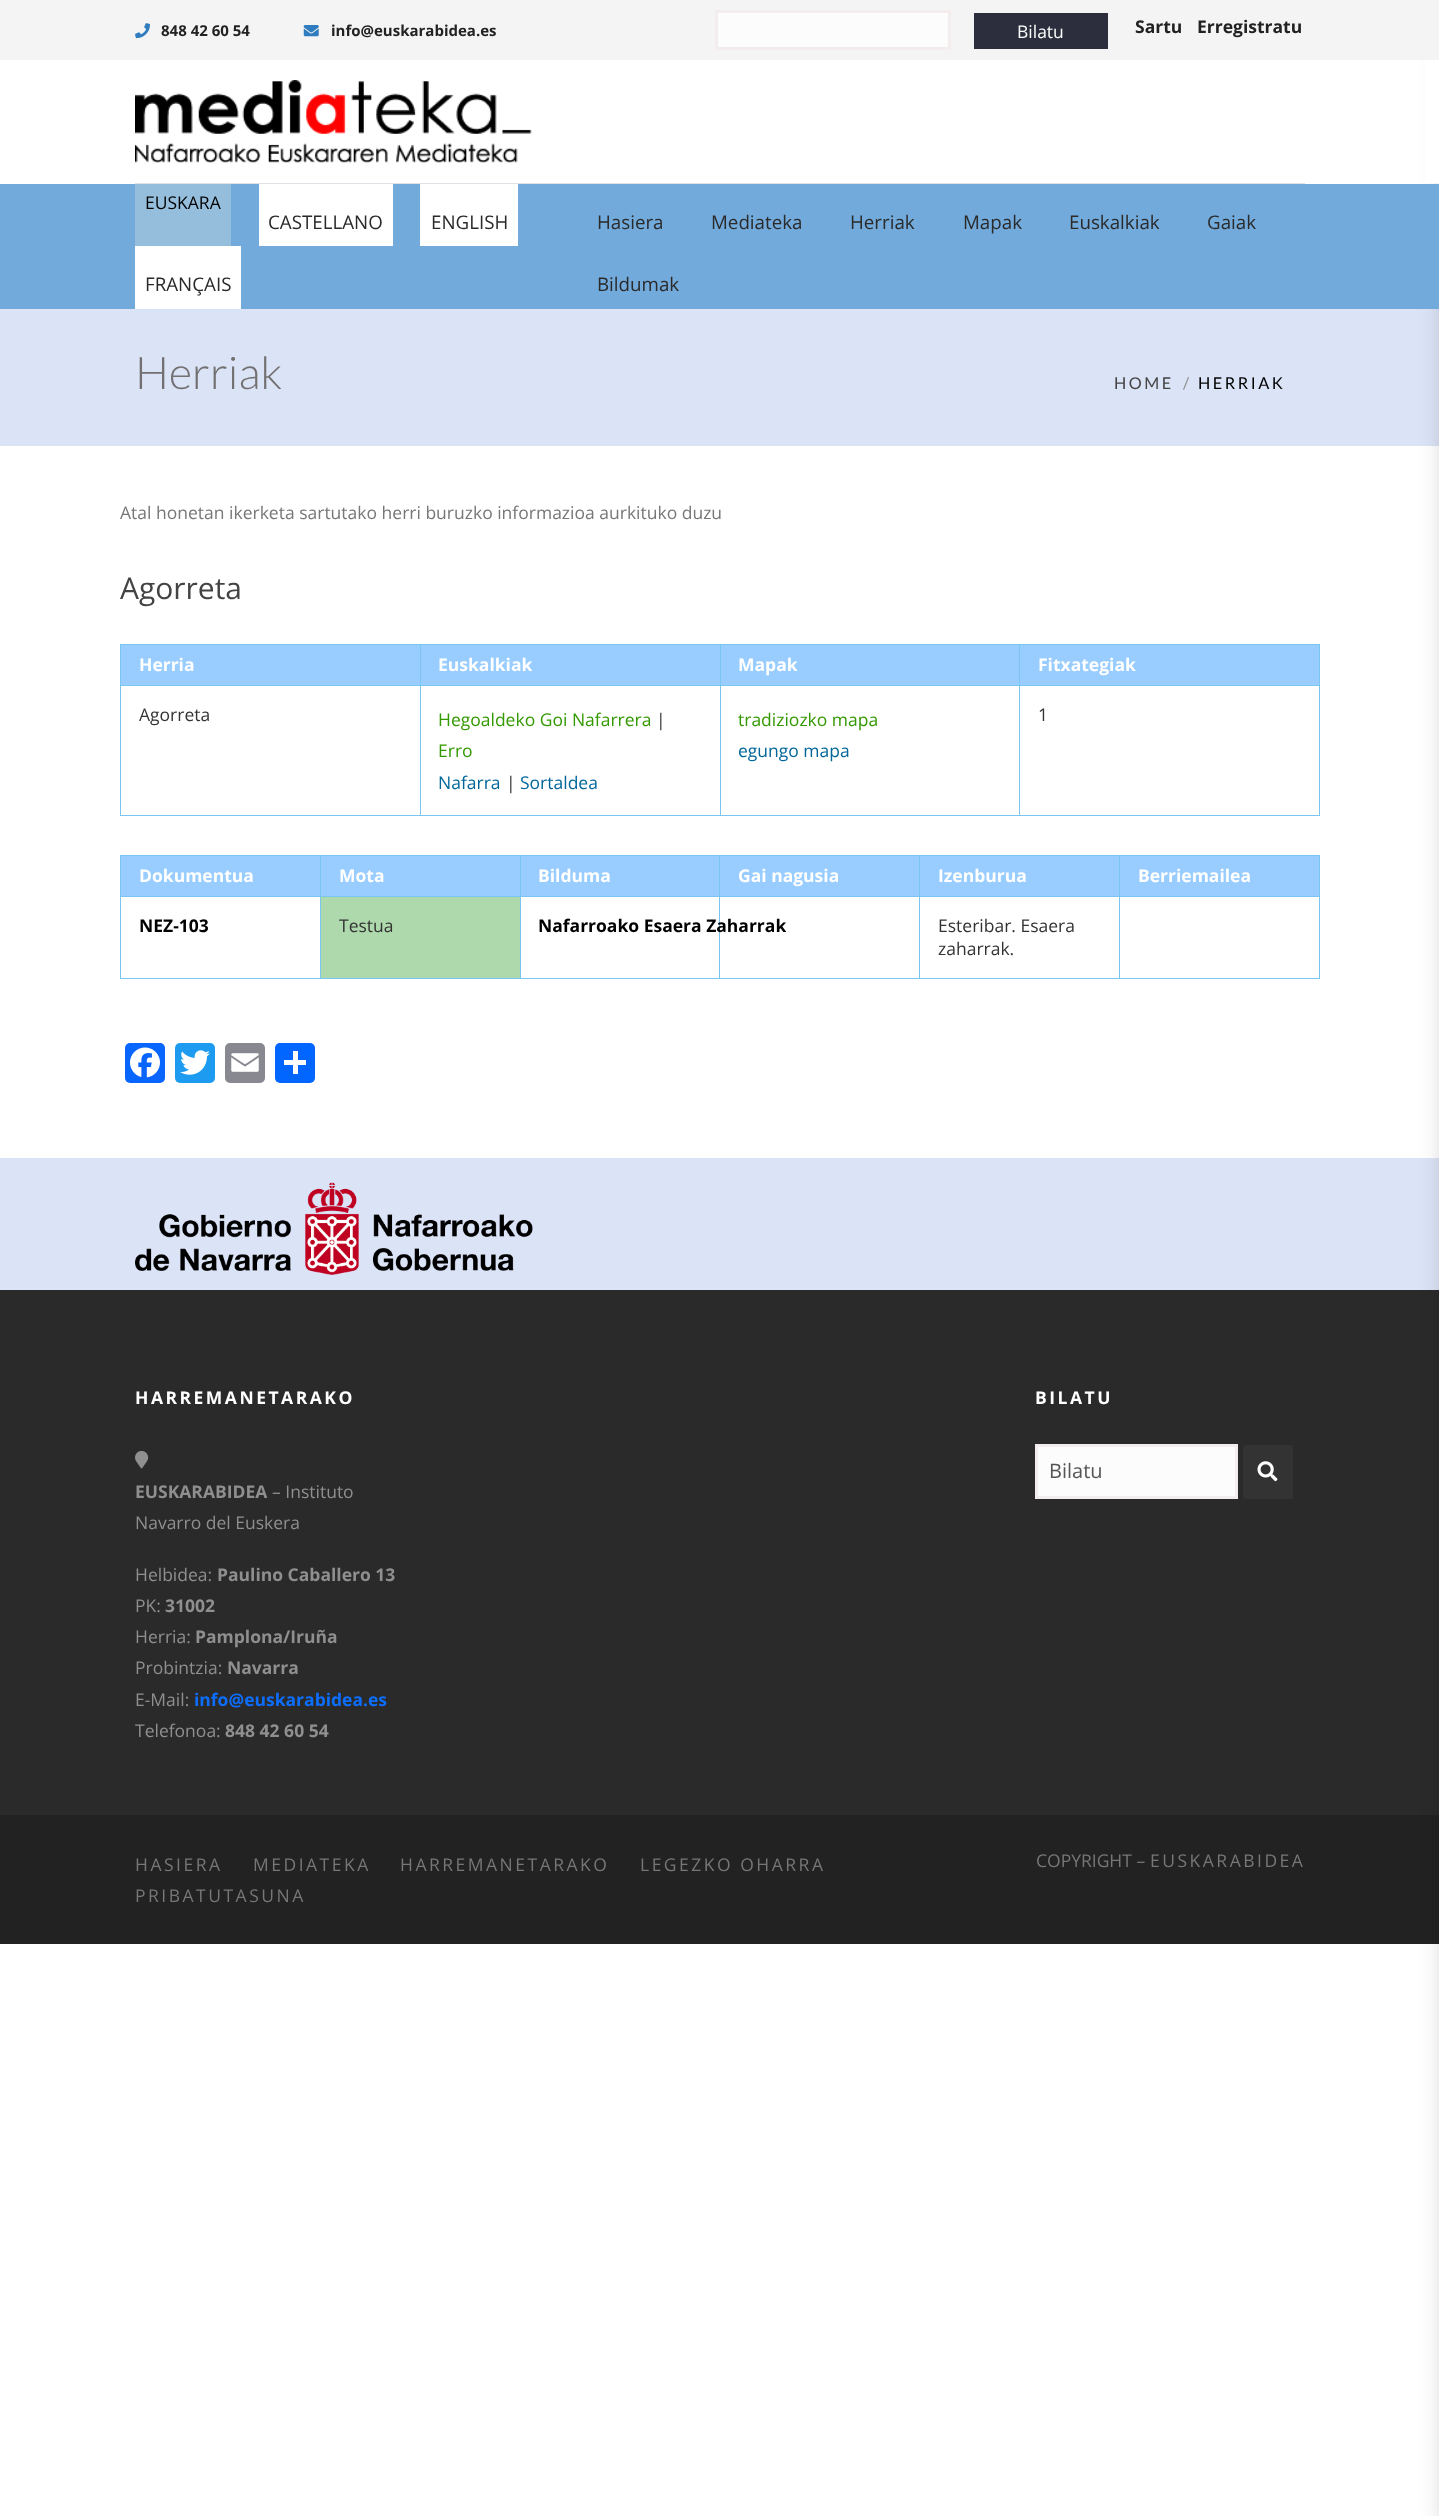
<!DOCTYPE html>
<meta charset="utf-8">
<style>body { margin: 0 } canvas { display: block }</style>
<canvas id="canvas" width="1439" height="2516"></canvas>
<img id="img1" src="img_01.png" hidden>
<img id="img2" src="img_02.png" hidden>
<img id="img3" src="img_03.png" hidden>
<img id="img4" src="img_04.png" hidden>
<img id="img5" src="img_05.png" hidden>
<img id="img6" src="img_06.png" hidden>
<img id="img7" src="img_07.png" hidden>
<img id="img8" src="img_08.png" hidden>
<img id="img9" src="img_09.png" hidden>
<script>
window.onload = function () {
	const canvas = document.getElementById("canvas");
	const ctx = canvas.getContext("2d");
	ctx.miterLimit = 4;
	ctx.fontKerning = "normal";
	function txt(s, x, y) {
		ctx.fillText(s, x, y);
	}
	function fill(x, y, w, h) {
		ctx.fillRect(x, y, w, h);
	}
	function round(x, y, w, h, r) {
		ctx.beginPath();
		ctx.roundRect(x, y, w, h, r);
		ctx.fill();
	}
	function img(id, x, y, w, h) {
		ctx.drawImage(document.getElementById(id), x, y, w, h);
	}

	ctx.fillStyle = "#FFFFFF";
	fill(0, 0, 1439, 2516);
	ctx.fillStyle = "#DBE3F6";
	fill(0, 309, 1439, 137);
	fill(0, 1158, 1439, 132);
	ctx.fillStyle = "#2A2A2A";
	fill(0, 1290, 1439, 525);
	ctx.fillStyle = "#222222";
	fill(0, 1815, 1439, 129);
	ctx.fillStyle = "rgba(0, 0, 0, 0.15)";
	ctx.filter = "blur(10px)";
	ctx.beginPath();
	ctx.rect(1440, 10, 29, 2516);
	ctx.fill();
	ctx.filter = "none";
	ctx.fillStyle = "#F4F4F4";
	fill(0, 0, 1439, 60);
	img("img1", 135, 23, 15, 16);
	img("img2", 303, 25, 16, 12);
	ctx.fillStyle = "#FCFCFC";
	ctx.beginPath();
	ctx.rect(716.5, 11.5, 233, 37);
	ctx.fill();
	ctx.strokeStyle = "#F3EDED";
	ctx.lineWidth = 3;
	ctx.stroke();
	ctx.fillStyle = "#2C2E3D";
	fill(974, 13, 134, 36);
	img("img3", 135, 80, 397, 83);
	ctx.fillStyle = "#FFFFFF";
	fill(1425, 60, 14, 123);
	ctx.fillStyle = "#DEE2E6";
	fill(135, 183, 1170, 1);
	ctx.fillStyle = "#72AADB";
	fill(0, 184, 1439, 125);
	ctx.fillStyle = "#95BEDD";
	fill(135, 184, 96, 62);
	ctx.fillStyle = "#FFFFFF";
	fill(259, 184, 134, 62);
	fill(420, 184, 98, 62);
	fill(135, 246, 106, 63);
	ctx.fillStyle = "#99CDFF";
	fill(121, 645, 1198, 40);
	ctx.fillStyle = "#79C7F0";
	fill(1019, 644, 301, 1);
	fill(1019, 685, 301, 1);
	fill(1319, 685, 1, 131);
	fill(1019, 815, 301, 1);
	fill(1019, 685, 1, 131);
	fill(720, 685, 300, 1);
	fill(1019, 644, 1, 42);
	fill(720, 644, 300, 1);
	fill(720, 815, 300, 1);
	fill(720, 685, 1, 131);
	fill(420, 685, 301, 1);
	fill(720, 644, 1, 42);
	fill(420, 644, 301, 1);
	fill(420, 815, 301, 1);
	fill(420, 685, 1, 131);
	fill(120, 685, 301, 1);
	fill(420, 644, 1, 42);
	fill(120, 644, 301, 1);
	fill(120, 815, 301, 1);
	fill(120, 685, 1, 131);
	fill(120, 644, 1, 42);
	fill(1319, 644, 1, 42);
	ctx.fillStyle = "#99CDFF";
	fill(121, 856, 1198, 40);
	ctx.fillStyle = "#79C7F0";
	fill(1119, 855, 201, 1);
	fill(1119, 896, 201, 1);
	fill(1319, 896, 1, 83);
	fill(1119, 978, 201, 1);
	fill(1119, 896, 1, 83);
	fill(919, 896, 201, 1);
	fill(1119, 855, 1, 43);
	fill(919, 855, 201, 1);
	fill(919, 978, 201, 1);
	fill(919, 896, 1, 83);
	fill(719, 896, 201, 1);
	fill(919, 855, 1, 43);
	fill(719, 855, 201, 1);
	fill(719, 978, 201, 1);
	fill(719, 896, 1, 83);
	fill(520, 896, 200, 1);
	fill(719, 855, 1, 43);
	fill(520, 855, 200, 1);
	fill(520, 978, 200, 1);
	fill(520, 896, 1, 83);
	fill(320, 896, 201, 1);
	fill(520, 855, 1, 43);
	fill(320, 855, 201, 1);
	fill(320, 978, 201, 1);
	fill(320, 896, 1, 83);
	fill(120, 896, 201, 1);
	fill(320, 855, 1, 43);
	fill(120, 855, 201, 1);
	fill(120, 978, 201, 1);
	fill(120, 896, 1, 83);
	fill(120, 855, 1, 43);
	fill(1319, 855, 1, 43);
	ctx.fillStyle = "#AED9AC";
	fill(321, 897, 199, 81);
	ctx.fillStyle = "#0866FF";
	round(125, 1043, 40, 40, 5);
	img("img4", 130, 1047, 30, 31);
	ctx.fillStyle = "#1D9BF0";
	round(175, 1043, 40, 40, 5);
	img("img5", 180, 1050, 30, 25);
	ctx.fillStyle = "#888990";
	round(225, 1043, 40, 40, 5);
	img("img6", 231, 1053, 28, 19);
	ctx.fillStyle = "#0166FF";
	round(275, 1043, 40, 40, 5);
	ctx.fillStyle = "#FFFFFF";
	fill(293, 1051, 5, 23);
	fill(284, 1060, 22, 5);
	img("img7", 135, 1182, 398, 93);
	img("img8", 135, 1450, 14, 19);
	ctx.fillStyle = "#FCFCFC";
	ctx.beginPath();
	ctx.rect(1036.5, 1445.5, 200, 52);
	ctx.fill();
	ctx.stroke();
	ctx.fillStyle = "#333333";
	round(1243, 1445, 50, 54, 2.5);
	img("img9", 1257, 1461, 21, 21);
	ctx.font = "bold 15px Open Sans";
	ctx.fillStyle = "#222222";
	txt("848 42 60 54", 161, 36);
	txt("info@euskarabidea.es", 331, 36);
	ctx.font = "17.5px Open Sans";
	ctx.fillStyle = "#FFFFFF";
	txt("Bilatu", 1017, 38);
	ctx.font = "bold 17.5px Open Sans";
	ctx.fillStyle = "#222222";
	txt("Sartu", 1135, 33);
	txt("Erregistratu", 1197, 33);
	ctx.font = "17.5px Open Sans";
	ctx.fillStyle = "#000000";
	txt("EUSKARA", 145, 209);
	ctx.font = "18.75px Open Sans";
	ctx.fillStyle = "#2A2A2A";
	txt("CASTELLANO", 268, 229);
	txt("ENGLISH", 431, 229);
	txt("FRANÇAIS", 145, 291);
	txt("Hasiera", 597, 229);
	txt("Mediateka", 711, 229);
	txt("Herriak", 850, 229);
	txt("Mapak", 963, 229);
	txt("Euskalkiak", 1069, 229);
	txt("Gaiak", 1207, 229);
	txt("Bildumak", 597, 291);
	ctx.font = "300 45px Lato";
	ctx.fillStyle = "#727070";
	txt("Herriak", 135, 389);
	ctx.letterSpacing = "2.5px";
	ctx.font = "16.25px Lato";
	ctx.fillStyle = "#444444";
	txt("HOME", 1114, 389);
	ctx.fillStyle = "#8F8F8F";
	txt("/", 1183, 389);
	ctx.fillStyle = "#000000";
	txt("HERRIAK", 1198, 389);
	ctx.letterSpacing = "0px";
	ctx.font = "17.5px Open Sans";
	ctx.fillStyle = "#777777";
	txt("Atal honetan ikerketa sartutako herri buruzko informazioa aurkituko duzu", 120, 519);
	ctx.font = "30px Open Sans";
	ctx.fillStyle = "#444444";
	txt("Agorreta", 120, 599);
	ctx.font = "bold 17.5px Open Sans";
	ctx.fillStyle = "#FFFFFF";
	txt("Herria", 139, 671);
	txt("Euskalkiak", 438, 671);
	txt("Mapak", 738, 671);
	txt("Fitxategiak", 1038, 671);
	ctx.font = "17.5px Open Sans";
	ctx.fillStyle = "#333333";
	txt("Agorreta", 139, 721);
	ctx.fillStyle = "#339900";
	txt("Hegoaldeko Goi Nafarrera", 438, 726);
	ctx.fillStyle = "#333333";
	txt("|", 656, 726);
	ctx.fillStyle = "#339900";
	txt("Erro", 438, 757);
	ctx.fillStyle = "#006699";
	txt("Nafarra", 438, 789);
	ctx.fillStyle = "#333333";
	txt("|", 506, 789);
	ctx.fillStyle = "#006699";
	txt("Sortaldea", 520, 789);
	ctx.fillStyle = "#339900";
	txt("tradiziozko mapa", 738, 726);
	ctx.fillStyle = "#006699";
	txt("egungo mapa", 738, 757);
	ctx.fillStyle = "#333333";
	txt("1", 1038, 721);
	ctx.font = "bold 17.5px Open Sans";
	ctx.fillStyle = "#FFFFFF";
	txt("Dokumentua", 139, 882);
	txt("Mota", 339, 882);
	txt("Bilduma", 538, 882);
	txt("Gai nagusia", 738, 882);
	txt("Izenburua", 938, 882);
	txt("Berriemailea", 1138, 882);
	ctx.fillStyle = "#000000";
	txt("NEZ-103", 139, 932);
	ctx.font = "17.5px Open Sans";
	ctx.fillStyle = "#333333";
	txt("Testua", 339, 932);
	ctx.font = "bold 17.5px Open Sans";
	ctx.fillStyle = "#000000";
	txt("Nafarroako Esaera Zaharrak", 538, 932);
	ctx.font = "17.5px Open Sans";
	ctx.fillStyle = "#333333";
	txt("Esteribar. Esaera", 938, 932);
	txt("zaharrak.", 938, 955);
	ctx.letterSpacing = "2.5px";
	ctx.font = "bold 17.5px Open Sans";
	ctx.fillStyle = "#FFFFFF";
	txt("HARREMANETARAKO", 135, 1404);
	ctx.letterSpacing = "0px";
	ctx.fillStyle = "#8F8F8F";
	txt("EUSKARABIDEA", 135, 1498);
	ctx.font = "17.5px Open Sans";
	txt("– Instituto", 272, 1498);
	txt("Navarro del Euskera", 135, 1529);
	txt("Helbidea:", 135, 1581);
	ctx.font = "bold 17.5px Open Sans";
	txt("Paulino Caballero 13", 217, 1581);
	ctx.font = "17.5px Open Sans";
	txt("PK:", 135, 1612);
	ctx.font = "bold 17.5px Open Sans";
	txt("31002", 165, 1612);
	ctx.font = "17.5px Open Sans";
	txt("Herria:", 135, 1643);
	ctx.font = "bold 17.5px Open Sans";
	txt("Pamplona/Iruña", 195, 1643);
	ctx.font = "17.5px Open Sans";
	txt("Probintzia:", 135, 1674);
	ctx.font = "bold 17.5px Open Sans";
	txt("Navarra", 227, 1674);
	ctx.font = "17.5px Open Sans";
	txt("E-Mail:", 135, 1706);
	ctx.font = "bold 17.5px Open Sans";
	ctx.fillStyle = "#0D6EFD";
	txt("info@euskarabidea.es", 194, 1706);
	ctx.font = "17.5px Open Sans";
	ctx.fillStyle = "#8F8F8F";
	txt("Telefonoa:", 135, 1737);
	ctx.font = "bold 17.5px Open Sans";
	txt("848 42 60 54", 225, 1737);
	ctx.letterSpacing = "2.5px";
	ctx.fillStyle = "#FFFFFF";
	txt("BILATU", 1035, 1404);
	ctx.letterSpacing = "0px";
	ctx.font = "20px Open Sans";
	ctx.fillStyle = "#555555";
	txt("Bilatu", 1049, 1478);
	ctx.letterSpacing = "2.5px";
	ctx.font = "17.5px Open Sans";
	ctx.fillStyle = "#777777";
	txt("HASIERA", 135, 1871);
	txt("MEDIATEKA", 253, 1871);
	txt("HARREMANETARAKO", 400, 1871);
	txt("LEGEZKO OHARRA", 640, 1871);
	txt("PRIBATUTASUNA", 135, 1902);
	ctx.letterSpacing = "0px";
	txt("COPYRIGHT –", 1036, 1867);
	ctx.letterSpacing = "2.5px";
	txt("EUSKARABIDEA", 1150, 1867);
};
</script>
